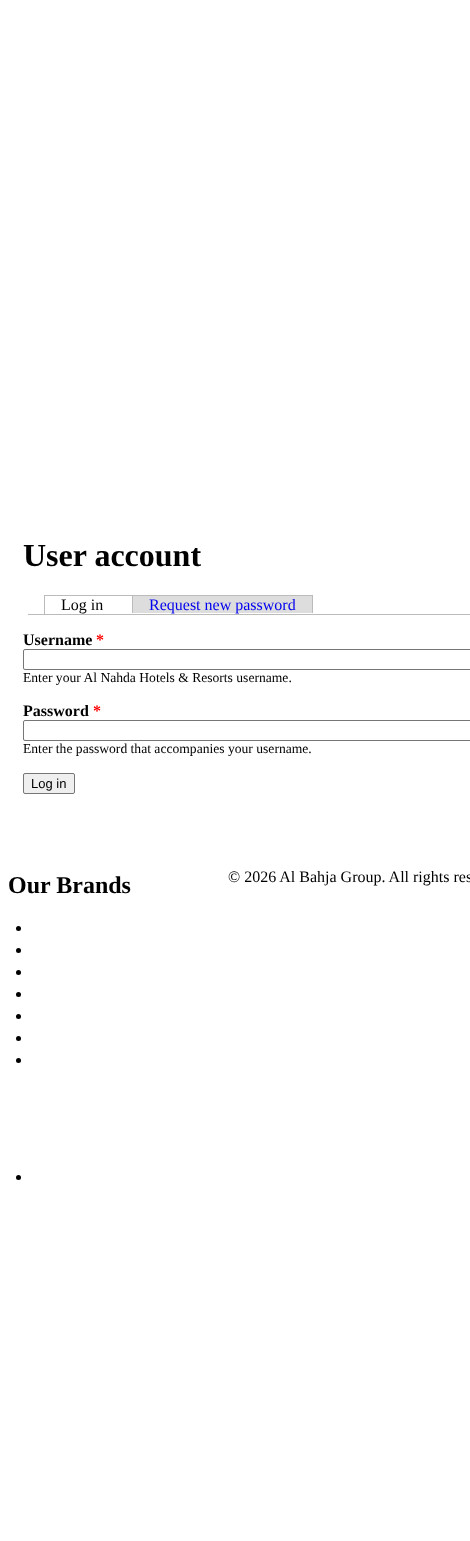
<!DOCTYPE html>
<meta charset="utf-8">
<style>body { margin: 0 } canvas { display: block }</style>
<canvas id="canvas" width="470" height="1541"></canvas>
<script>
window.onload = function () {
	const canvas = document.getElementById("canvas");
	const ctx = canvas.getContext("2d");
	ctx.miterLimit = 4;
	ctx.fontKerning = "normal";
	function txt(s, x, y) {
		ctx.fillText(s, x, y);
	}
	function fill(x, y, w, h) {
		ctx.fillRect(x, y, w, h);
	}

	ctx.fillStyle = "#FFFFFF";
	fill(0, 0, 470, 1541);
	ctx.fillStyle = "#BBBBBB";
	fill(28, 614, 442, 1);
	fill(44, 595, 269, 1);
	fill(44, 595, 1, 19);
	ctx.fillStyle = "#DDDDDD";
	fill(133, 596, 179, 17);
	ctx.fillStyle = "#BBBBBB";
	fill(312, 595, 1, 18);
	fill(132, 595, 1, 18);
	ctx.beginPath();
	ctx.roundRect(23.5, 649.5, 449, 20, 1.5);
	ctx.strokeStyle = "#767676";
	ctx.stroke();
	ctx.beginPath();
	ctx.roundRect(23.5, 720.5, 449, 20, 1.5);
	ctx.stroke();
	ctx.fillStyle = "#EFEFEF";
	ctx.beginPath();
	ctx.roundRect(23.5, 773.5, 51, 20, 1.5);
	ctx.fill();
	ctx.stroke();
	ctx.fillStyle = "#000000";
	ctx.beginPath();
	ctx.arc(18.5, 928.5, 2.5, 0, Math.PI * 2);
	ctx.fill();
	ctx.beginPath();
	ctx.arc(18.5, 950.5, 2.5, 0, Math.PI * 2);
	ctx.fill();
	ctx.beginPath();
	ctx.arc(18.5, 972.5, 2.5, 0, Math.PI * 2);
	ctx.fill();
	ctx.beginPath();
	ctx.arc(18.5, 994.5, 2.5, 0, Math.PI * 2);
	ctx.fill();
	ctx.beginPath();
	ctx.arc(18.5, 1016.5, 2.5, 0, Math.PI * 2);
	ctx.fill();
	ctx.beginPath();
	ctx.arc(18.5, 1038.5, 2.5, 0, Math.PI * 2);
	ctx.fill();
	ctx.beginPath();
	ctx.arc(18.5, 1060.5, 2.5, 0, Math.PI * 2);
	ctx.fill();
	ctx.beginPath();
	ctx.arc(18.5, 1177.5, 2.5, 0, Math.PI * 2);
	ctx.fill();
	ctx.font = "bold 32px Liberation Serif";
	txt("User account", 23, 566);
	ctx.font = "16px Liberation Serif";
	txt("Log in", 61, 610);
	ctx.fillStyle = "#0000EE";
	txt("Request new password", 149, 610);
	ctx.font = "bold 16px Liberation Serif";
	ctx.fillStyle = "#000000";
	txt("Username", 23, 645);
	ctx.fillStyle = "#FF0000";
	txt("*", 96, 645);
	ctx.font = "13.6px Liberation Serif";
	ctx.fillStyle = "#000000";
	txt("Enter your Al Nahda Hotels & Resorts username.", 23, 682);
	ctx.font = "bold 16px Liberation Serif";
	txt("Password", 23, 716);
	ctx.fillStyle = "#FF0000";
	txt("*", 93, 716);
	ctx.font = "13.6px Liberation Serif";
	ctx.fillStyle = "#000000";
	txt("Enter the password that accompanies your username.", 23, 753);
	ctx.font = "13px Liberation Sans";
	txt("Log in", 31, 788);
	ctx.font = "bold 24px Liberation Serif";
	txt("Our Brands", 8, 893);
	ctx.font = "16px Liberation Serif";
	txt("© 2026 Al Bahja Group. All rights res", 228, 882);
};
</script>
